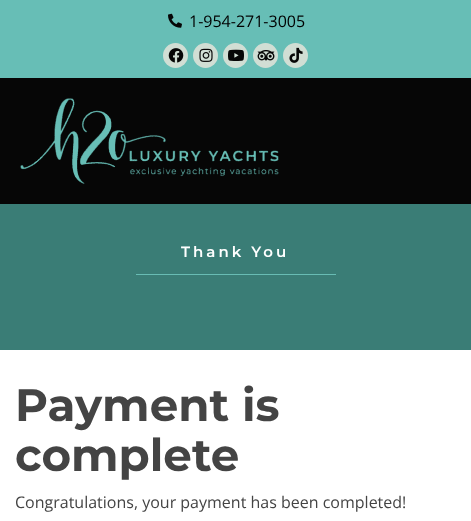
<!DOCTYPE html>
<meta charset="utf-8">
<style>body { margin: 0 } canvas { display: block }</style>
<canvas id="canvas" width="471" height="521"></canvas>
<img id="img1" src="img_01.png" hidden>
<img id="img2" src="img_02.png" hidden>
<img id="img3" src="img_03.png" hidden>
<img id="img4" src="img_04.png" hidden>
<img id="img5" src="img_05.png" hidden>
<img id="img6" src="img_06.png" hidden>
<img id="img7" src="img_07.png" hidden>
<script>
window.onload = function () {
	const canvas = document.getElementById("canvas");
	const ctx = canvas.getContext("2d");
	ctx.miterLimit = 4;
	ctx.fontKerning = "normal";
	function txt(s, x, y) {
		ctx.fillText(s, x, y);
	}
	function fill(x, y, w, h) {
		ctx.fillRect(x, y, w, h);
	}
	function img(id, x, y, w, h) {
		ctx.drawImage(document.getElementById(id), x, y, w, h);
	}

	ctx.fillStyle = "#FFFFFF";
	fill(0, 0, 471, 521);
	ctx.fillStyle = "#67BEB6";
	fill(0, 0, 471, 78);
	img("img1", 168, 13, 14, 15);
	ctx.fillStyle = "#D1DED4";
	ctx.beginPath();
	ctx.arc(175.5, 55.5, 12.5, 0, Math.PI * 2);
	ctx.fill();
	img("img2", 168, 48, 16, 15);
	ctx.beginPath();
	ctx.arc(205.5, 55.5, 12.5, 0, Math.PI * 2);
	ctx.fill();
	img("img3", 199, 48, 14, 14);
	ctx.beginPath();
	ctx.arc(235.5, 55.5, 12.5, 0, Math.PI * 2);
	ctx.fill();
	img("img4", 228, 49, 16, 12);
	ctx.beginPath();
	ctx.arc(265.5, 55.5, 12.5, 0, Math.PI * 2);
	ctx.fill();
	img("img5", 257, 50, 18, 11);
	ctx.beginPath();
	ctx.arc(295.5, 55.5, 12.5, 0, Math.PI * 2);
	ctx.fill();
	img("img6", 289, 47, 14, 16);
	ctx.fillStyle = "#060606";
	fill(0, 78, 471, 126);
	img("img7", 20, 98, 259, 86);
	ctx.fillStyle = "#3A7D76";
	fill(0, 204, 471, 146);
	ctx.fillStyle = "#68BCB4";
	fill(136, 274, 200, 1);
	ctx.font = "16px Open Sans";
	ctx.fillStyle = "#000000";
	txt("1-954-271-3005", 189, 27);
	ctx.letterSpacing = "3px";
	ctx.font = "600 15px Montserrat";
	ctx.fillStyle = "#FFFFFF";
	txt("Thank You", 181, 257);
	ctx.letterSpacing = "0px";
	ctx.font = "bold 45.25px Montserrat";
	ctx.fillStyle = "#444444";
	txt("Payment is", 15, 421);
	txt("complete", 15, 471);
	ctx.font = "16px Open Sans";
	txt("Congratulations, your payment has been completed!", 15, 508);
};
</script>
